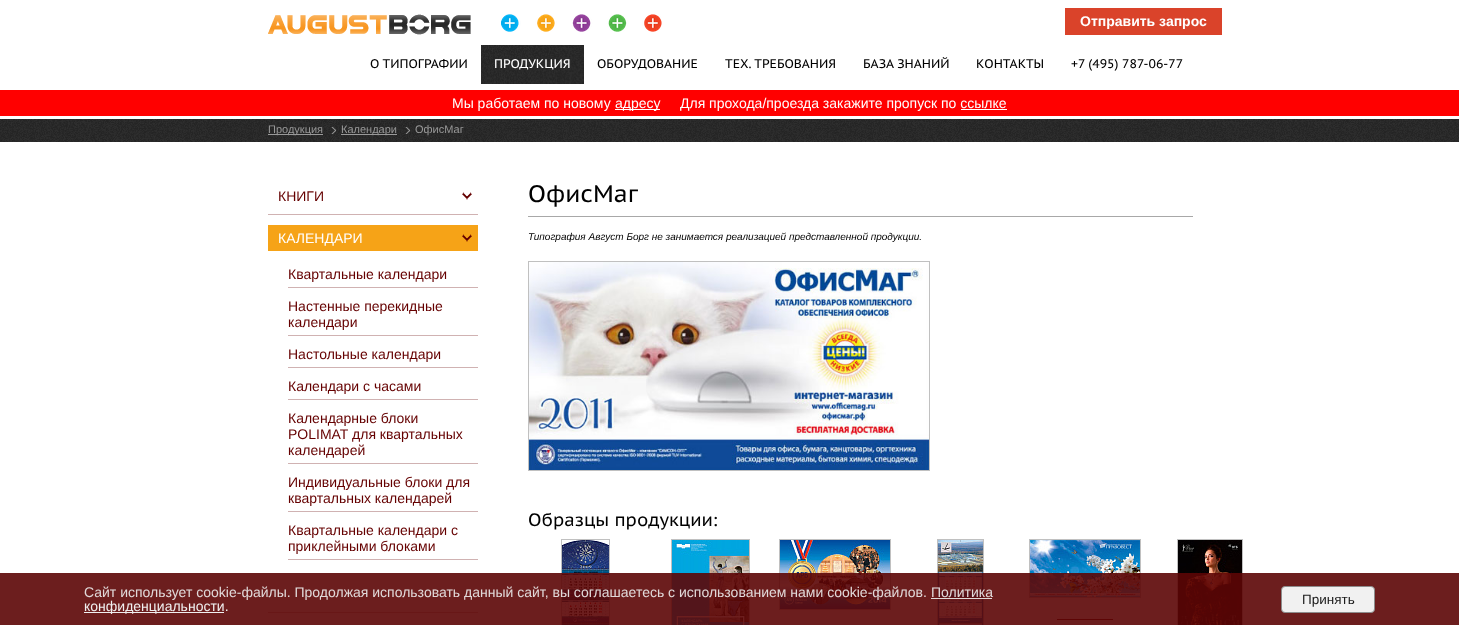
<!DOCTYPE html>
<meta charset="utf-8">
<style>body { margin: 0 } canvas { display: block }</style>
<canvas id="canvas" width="1459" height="625"></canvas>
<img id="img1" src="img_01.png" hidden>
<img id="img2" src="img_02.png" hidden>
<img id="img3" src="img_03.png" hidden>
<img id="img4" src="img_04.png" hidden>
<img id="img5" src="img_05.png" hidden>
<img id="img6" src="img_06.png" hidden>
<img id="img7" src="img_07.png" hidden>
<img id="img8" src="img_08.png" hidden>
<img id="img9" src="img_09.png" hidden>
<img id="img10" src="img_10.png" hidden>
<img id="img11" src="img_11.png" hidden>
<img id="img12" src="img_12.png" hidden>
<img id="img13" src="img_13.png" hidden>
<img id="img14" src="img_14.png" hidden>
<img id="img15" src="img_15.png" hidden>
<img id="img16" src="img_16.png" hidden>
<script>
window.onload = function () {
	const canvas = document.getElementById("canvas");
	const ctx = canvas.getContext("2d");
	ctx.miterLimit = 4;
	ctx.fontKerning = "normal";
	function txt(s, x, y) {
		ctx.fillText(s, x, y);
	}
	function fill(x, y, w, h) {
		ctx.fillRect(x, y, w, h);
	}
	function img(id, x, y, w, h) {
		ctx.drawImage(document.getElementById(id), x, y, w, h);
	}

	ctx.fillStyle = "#FFFFFF";
	fill(0, 0, 1459, 625);
	img("img1", 268, 14, 203, 21);
	img("img2", 501, 14, 161, 18);
	ctx.fillStyle = "#DA432A";
	fill(1065, 8, 157, 27);
	img("img3", 481, 45, 103, 39);
	ctx.fillStyle = "#FF0000";
	fill(0, 90, 1459, 26);
	ctx.fillStyle = "#FFFFFF";
	fill(615, 109, 45, 1);
	fill(961, 109, 46, 1);
	img("img4", 0, 119, 1459, 23);
	img("img5", 218, 119, 1024, 23);
	ctx.fillStyle = "#999999";
	fill(268, 134, 55, 1);
	img("img6", 331, 127, 5, 7);
	fill(341, 134, 56, 1);
	img("img7", 405, 127, 5, 7);
	ctx.fillStyle = "#D0B2B2";
	fill(268, 214, 210, 1);
	img("img8", 462, 192, 10, 8);
	fill(268, 612, 210, 1);
	ctx.fillStyle = "#F6A317";
	fill(268, 225, 210, 26);
	img("img9", 462, 234, 10, 8);
	ctx.fillStyle = "#D0B2B2";
	fill(288, 287, 190, 1);
	fill(288, 335, 190, 1);
	fill(288, 367, 190, 1);
	fill(288, 399, 190, 1);
	fill(288, 463, 190, 1);
	fill(288, 511, 190, 1);
	fill(288, 559, 190, 1);
	ctx.fillStyle = "#A8A8A8";
	fill(528, 216, 665, 1);
	ctx.fillStyle = "#C0C0C0";
	fill(528, 261, 402, 1);
	fill(929, 261, 1, 210);
	fill(528, 470, 402, 1);
	fill(528, 261, 1, 210);
	img("img10", 529, 262, 400, 208);
	ctx.strokeStyle = "#C0C0C0";
	ctx.strokeRect(561.5, 539.5, 48, 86);
	img("img11", 562, 540, 47, 85);
	ctx.strokeRect(671.5, 539.5, 78, 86);
	img("img12", 672, 540, 77, 85);
	ctx.strokeRect(779.5, 539.5, 111, 70);
	img("img13", 780, 540, 110, 69);
	ctx.strokeRect(937.5, 539.5, 46, 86);
	img("img14", 938, 540, 45, 85);
	ctx.strokeRect(1029.5, 539.5, 111, 58);
	img("img15", 1030, 540, 110, 57);
	ctx.fillStyle = "#650000";
	fill(1057, 619, 56, 1);
	ctx.strokeRect(1177.5, 539.5, 65, 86);
	img("img16", 1178, 540, 64, 85);
	ctx.fillStyle = "rgba(92, 5, 5, 0.9)";
	fill(0, 573, 1459, 52);
	ctx.fillStyle = "rgba(238, 238, 238, 0.9)";
	fill(931, 598, 61, 1);
	ctx.fillStyle = "#F0F0F0";
	fill(84, 612, 140, 1);
	ctx.fillStyle = "#F1F1F1";
	ctx.beginPath();
	ctx.roundRect(1281.5, 586.5, 93, 26, 3.5);
	ctx.fill();
	ctx.strokeStyle = "#8D8D8D";
	ctx.stroke();
	ctx.font = "bold 14px Liberation Sans";
	ctx.fillStyle = "#FFFFFF";
	txt("Отправить запрос", 1080, 26);
	ctx.font = "12.5px PT Sans Caption";
	ctx.fillStyle = "#000000";
	txt("О ТИПОГРАФИИ", 370, 68);
	ctx.fillStyle = "#FFFFFF";
	txt("ПРОДУКЦИЯ", 494, 68);
	ctx.fillStyle = "#000000";
	txt("ОБОРУДОВАНИЕ", 597, 68);
	txt("ТЕХ. ТРЕБОВАНИЯ", 725, 68);
	txt("БАЗА ЗНАНИЙ", 863, 68);
	txt("КОНТАКТЫ", 976, 68);
	txt("+7 (495) 787-06-77", 1071, 68);
	ctx.font = "14px Liberation Sans";
	ctx.fillStyle = "#FFFFFF";
	txt("Мы работаем по новому", 452, 108);
	txt("адресу", 615, 108);
	txt("Для прохода/проезда закажите пропуск по ссылке", 680, 108);
	ctx.font = "11px Liberation Sans";
	ctx.fillStyle = "#999999";
	txt("Продукция", 268, 133);
	txt("Календари", 341, 133);
	txt("ОфисМаг", 415, 133);
	ctx.font = "14px Liberation Sans";
	ctx.fillStyle = "#650000";
	txt("КНИГИ", 278, 201);
	ctx.fillStyle = "#FFFFFF";
	txt("КАЛЕНДАРИ", 278, 243);
	ctx.fillStyle = "#650000";
	txt("Квартальные календари", 288, 279);
	txt("Настенные перекидные", 288, 311);
	txt("календари", 288, 327);
	txt("Настольные календари", 288, 359);
	txt("Календари с часами", 288, 391);
	txt("Календарные блоки", 288, 423);
	txt("POLIMAT для квартальных", 288, 439);
	txt("календарей", 288, 455);
	txt("Индивидуальные блоки для", 288, 487);
	txt("квартальных календарей", 288, 503);
	txt("Квартальные календари с", 288, 535);
	txt("приклейными блоками", 288, 551);
	ctx.font = "24px PT Sans Caption";
	ctx.fillStyle = "#000000";
	txt("ОфисМаг", 528, 202);
	ctx.font = "italic 10px Liberation Sans";
	txt("Типография Август Борг не занимается реализацией представленной продукции.", 528, 240);
	ctx.font = "18px PT Sans Caption";
	txt("Образцы продукции:", 528, 526);
	ctx.font = "14px Liberation Sans";
	ctx.fillStyle = "#E1D9D9";
	txt("Сайт использует cookie-файлы. Продолжая использовать данный сайт, вы соглашаетесь с использованием нами cookie-файлов.", 84, 597);
	txt("Политика", 931, 597);
	ctx.fillStyle = "#F0F0F0";
	txt("конфиденциальности.", 84, 611);
	ctx.font = "13.5px Liberation Sans";
	ctx.fillStyle = "#1A1A1A";
	txt("Принять", 1302, 604);
};
</script>
